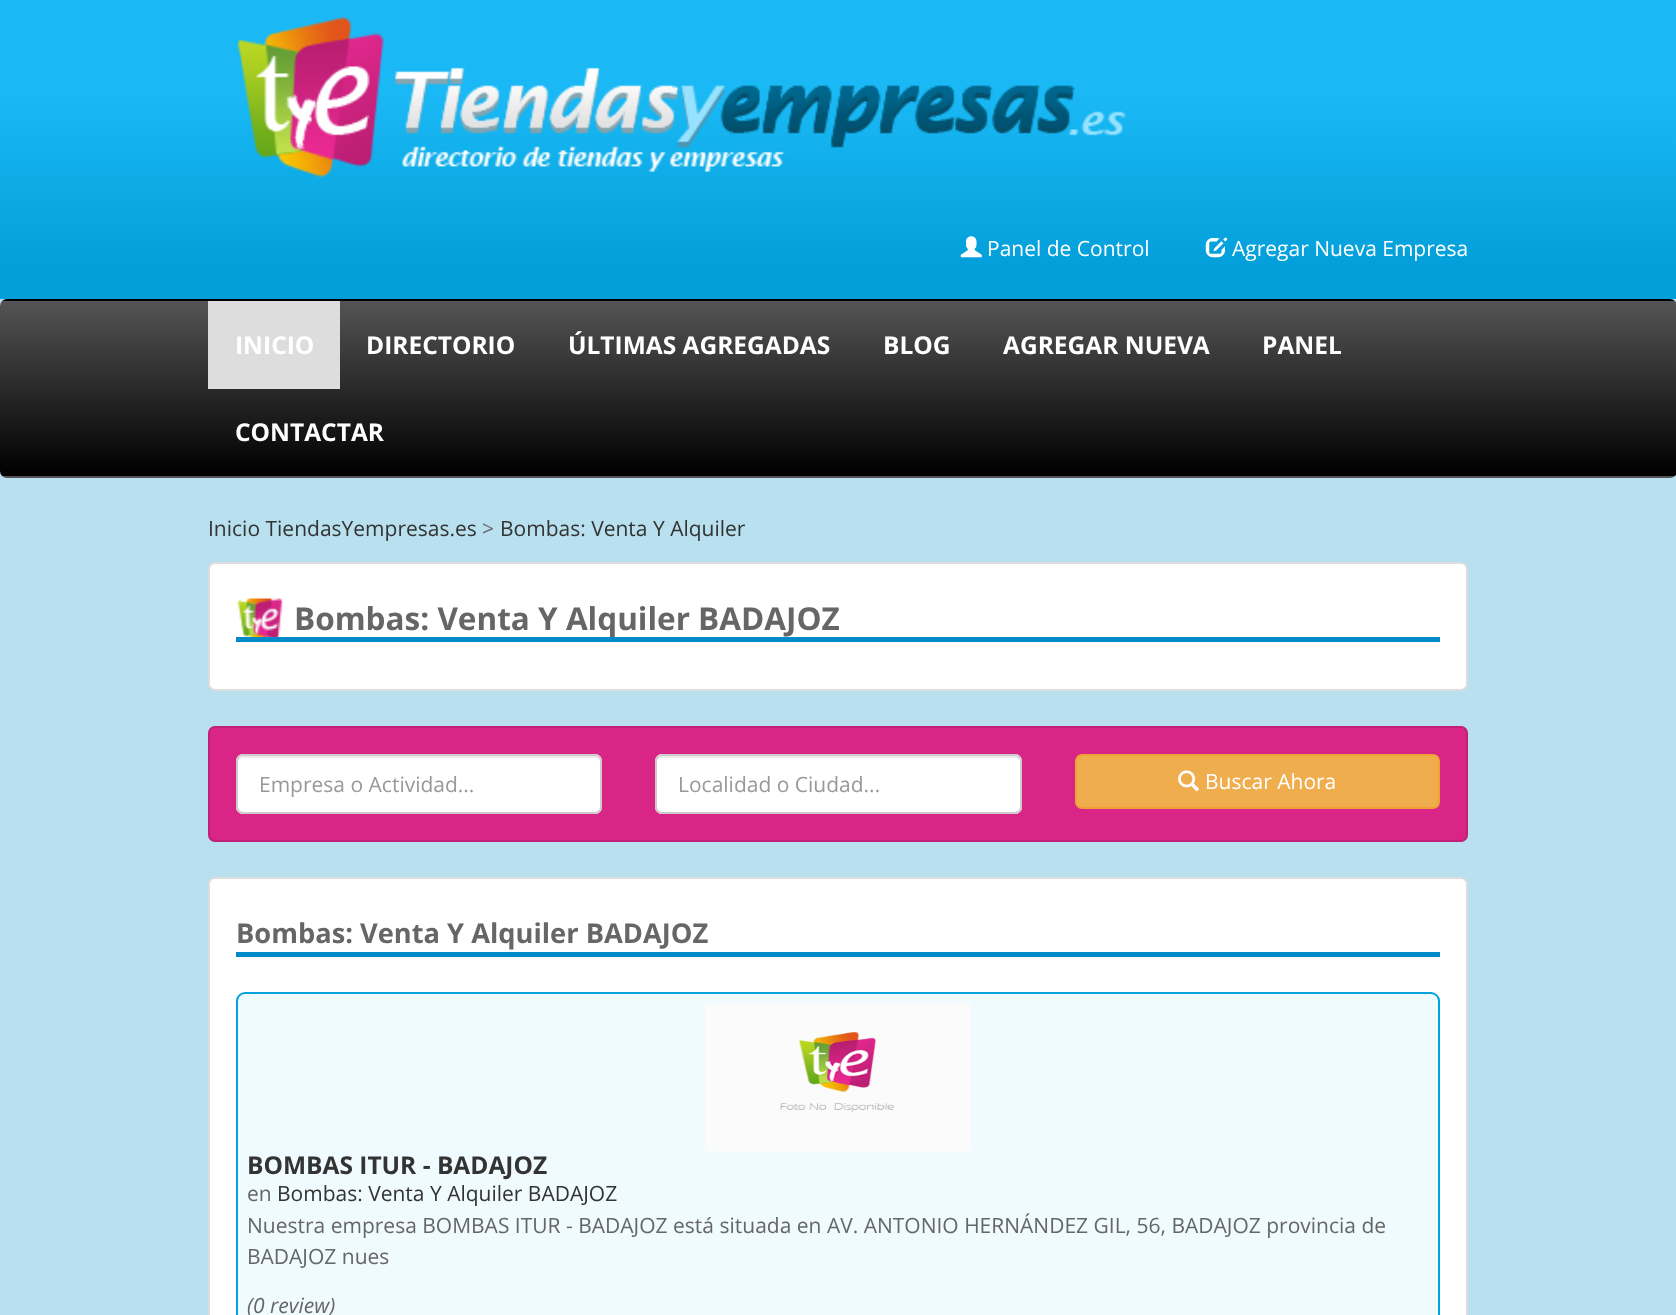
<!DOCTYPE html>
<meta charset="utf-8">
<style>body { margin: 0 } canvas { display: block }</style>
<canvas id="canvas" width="1676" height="1315"></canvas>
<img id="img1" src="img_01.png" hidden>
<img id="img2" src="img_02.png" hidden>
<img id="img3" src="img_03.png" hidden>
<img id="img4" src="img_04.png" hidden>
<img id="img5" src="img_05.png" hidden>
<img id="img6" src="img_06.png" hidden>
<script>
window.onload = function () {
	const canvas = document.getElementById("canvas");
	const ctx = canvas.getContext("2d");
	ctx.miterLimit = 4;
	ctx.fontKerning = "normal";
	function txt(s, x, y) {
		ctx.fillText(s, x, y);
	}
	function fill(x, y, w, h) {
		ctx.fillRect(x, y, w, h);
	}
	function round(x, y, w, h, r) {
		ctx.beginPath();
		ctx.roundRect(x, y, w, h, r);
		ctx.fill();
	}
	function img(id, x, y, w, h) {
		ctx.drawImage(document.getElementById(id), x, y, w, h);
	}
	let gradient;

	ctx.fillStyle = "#B8E0EF";
	fill(0, 0, 1676, 1315);
	gradient = ctx.createLinearGradient(838, 0, 838, 299);
	gradient.addColorStop(0.31, "#1AB9F5");
	gradient.addColorStop(0.89, "#039FDA");
	ctx.fillStyle = gradient;
	fill(0, 0, 1676, 299);
	img("img1", 237, 17, 889, 161);
	img("img2", 960, 236, 22, 22);
	img("img3", 1205, 237, 23, 21);
	ctx.save();
	ctx.beginPath();
	ctx.roundRect(0, 299, 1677, 179, 7);
	ctx.clip();
	gradient = ctx.createLinearGradient(838, 126, 838, 301);
	gradient.addColorStop(0, "#545454");
	gradient.addColorStop(0.99, "#000000");
	ctx.fillStyle = gradient;
	fill(0, 299, 1676, 2);
	gradient = ctx.createLinearGradient(838, 301, 838, 476);
	gradient.addColorStop(0, "#545454");
	gradient.addColorStop(0.99, "#000000");
	ctx.fillStyle = gradient;
	fill(0, 301, 1676, 175);
	gradient = ctx.createLinearGradient(838, 476, 838, 651);
	gradient.addColorStop(0, "#545454");
	gradient.addColorStop(0.99, "#000000");
	ctx.fillStyle = gradient;
	fill(0, 476, 1676, 2);
	ctx.restore();
	ctx.fillStyle = "#DDDDDD";
	fill(208, 301, 132, 88);
	ctx.fillStyle = "#FFFFFF";
	ctx.beginPath();
	ctx.roundRect(209, 563, 1258, 127, 6);
	ctx.fill();
	ctx.strokeStyle = "#DDDDDD";
	ctx.lineWidth = 2;
	ctx.stroke();
	img("img4", 237, 598, 46, 39);
	ctx.fillStyle = "#008ACA";
	fill(236, 637, 1204, 5);
	ctx.fillStyle = "#D82586";
	ctx.beginPath();
	ctx.roundRect(209, 727, 1258, 114, 6);
	ctx.fill();
	ctx.strokeStyle = "#C22078";
	ctx.stroke();
	ctx.fillStyle = "#FFFFFF";
	round(236, 754, 366, 60, 7);
	ctx.fillStyle = "#ECECEC";
	ctx.beginPath();
	ctx.moveTo(243, 758);
	ctx.lineTo(595, 758);
	ctx.bezierCurveTo(598, 758, 600, 760, 600, 763);
	ctx.bezierCurveTo(600, 760, 599, 756, 595, 756);
	ctx.lineTo(243, 756);
	ctx.bezierCurveTo(239, 756, 238, 760, 238, 763);
	ctx.bezierCurveTo(238, 760, 240, 758, 243, 758);
	ctx.closePath();
	ctx.fill();
	ctx.beginPath();
	ctx.roundRect(237, 755, 364, 58, 6);
	ctx.strokeStyle = "#CCCCCC";
	ctx.stroke();
	ctx.fillStyle = "#FFFFFF";
	round(655, 754, 367, 60, 7);
	ctx.fillStyle = "#ECECEC";
	ctx.beginPath();
	ctx.moveTo(662, 758);
	ctx.lineTo(1015, 758);
	ctx.bezierCurveTo(1018, 758, 1020, 760, 1020, 763);
	ctx.bezierCurveTo(1020, 760, 1019, 756, 1015, 756);
	ctx.lineTo(661, 756);
	ctx.bezierCurveTo(657, 756, 656, 760, 656, 763);
	ctx.bezierCurveTo(656, 760, 659, 758, 662, 758);
	ctx.closePath();
	ctx.fill();
	ctx.beginPath();
	ctx.roundRect(656, 755, 365, 58, 6);
	ctx.stroke();
	ctx.fillStyle = "#F0AD4E";
	ctx.beginPath();
	ctx.roundRect(1076, 755, 363, 53, 6);
	ctx.fill();
	ctx.strokeStyle = "#EEA236";
	ctx.stroke();
	img("img5", 1178, 770, 21, 22);
	ctx.fillStyle = "#FFFFFF";
	ctx.beginPath();
	ctx.roundRect(209, 878, 1258, 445, 6);
	ctx.fill();
	ctx.strokeStyle = "#DDDDDD";
	ctx.stroke();
	ctx.fillStyle = "#008ACA";
	fill(236, 952, 1204, 5);
	ctx.fillStyle = "#F0FBFF";
	ctx.beginPath();
	ctx.roundRect(237, 993, 1202, 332, 8);
	ctx.fill();
	ctx.strokeStyle = "#04A2DD";
	ctx.stroke();
	img("img6", 705, 1003, 266, 149);
	ctx.font = "21px Open Sans";
	ctx.fillStyle = "#FFFFFF";
	txt("Panel de Control", 987, 256);
	txt("Agregar Nueva Empresa", 1232, 256);
	ctx.font = "bold 24.5px Open Sans";
	txt("INICIO", 235, 354);
	txt("DIRECTORIO", 366, 354);
	txt("ÚLTIMAS AGREGADAS", 568, 354);
	txt("BLOG", 883, 354);
	txt("AGREGAR NUEVA", 1003, 354);
	txt("PANEL", 1262, 354);
	txt("CONTACTAR", 235, 441);
	ctx.font = "21px Open Sans";
	ctx.fillStyle = "#333333";
	txt("Inicio TiendasYempresas.es", 208, 536);
	ctx.fillStyle = "#666666";
	txt(">", 482, 536);
	ctx.fillStyle = "#333333";
	txt("Bombas: Venta Y Alquiler", 500, 536);
	ctx.save();
	ctx.beginPath();
	ctx.rect(236, 599, 1204, 38);
	ctx.clip();
	ctx.font = "bold 31.5px Open Sans";
	ctx.fillStyle = "#666666";
	txt("Bombas: Venta Y Alquiler", 294, 630);
	ctx.restore();
	ctx.font = "bold 31.5px Open Sans";
	ctx.fillStyle = "#666666";
	txt("BADAJOZ", 698, 630);
	ctx.font = "21px Open Sans";
	ctx.fillStyle = "#999999";
	txt("Empresa o Actividad...", 259, 792);
	txt("Localidad o Ciudad...", 678, 792);
	ctx.fillStyle = "#FFFFFF";
	txt("Buscar Ahora", 1205, 789);
	ctx.font = "bold 27.25px Open Sans";
	ctx.fillStyle = "#666666";
	txt("Bombas: Venta Y Alquiler BADAJOZ", 236, 943);
	ctx.font = "bold 24.5px Open Sans";
	ctx.fillStyle = "#333333";
	txt("BOMBAS ITUR - BADAJOZ", 247, 1174);
	ctx.font = "21px Open Sans";
	ctx.fillStyle = "#666666";
	txt("en", 247, 1201);
	ctx.fillStyle = "#333333";
	txt("Bombas: Venta Y Alquiler BADAJOZ", 277, 1201);
	ctx.fillStyle = "#666666";
	txt("Nuestra empresa BOMBAS ITUR - BADAJOZ está situada en AV. ANTONIO HERNÁNDEZ GIL, 56, BADAJOZ provincia de", 247, 1233);
	txt("BADAJOZ nues", 247, 1264);
	ctx.font = "italic 21px Open Sans";
	txt("(0 review)", 247, 1313);
};
</script>
